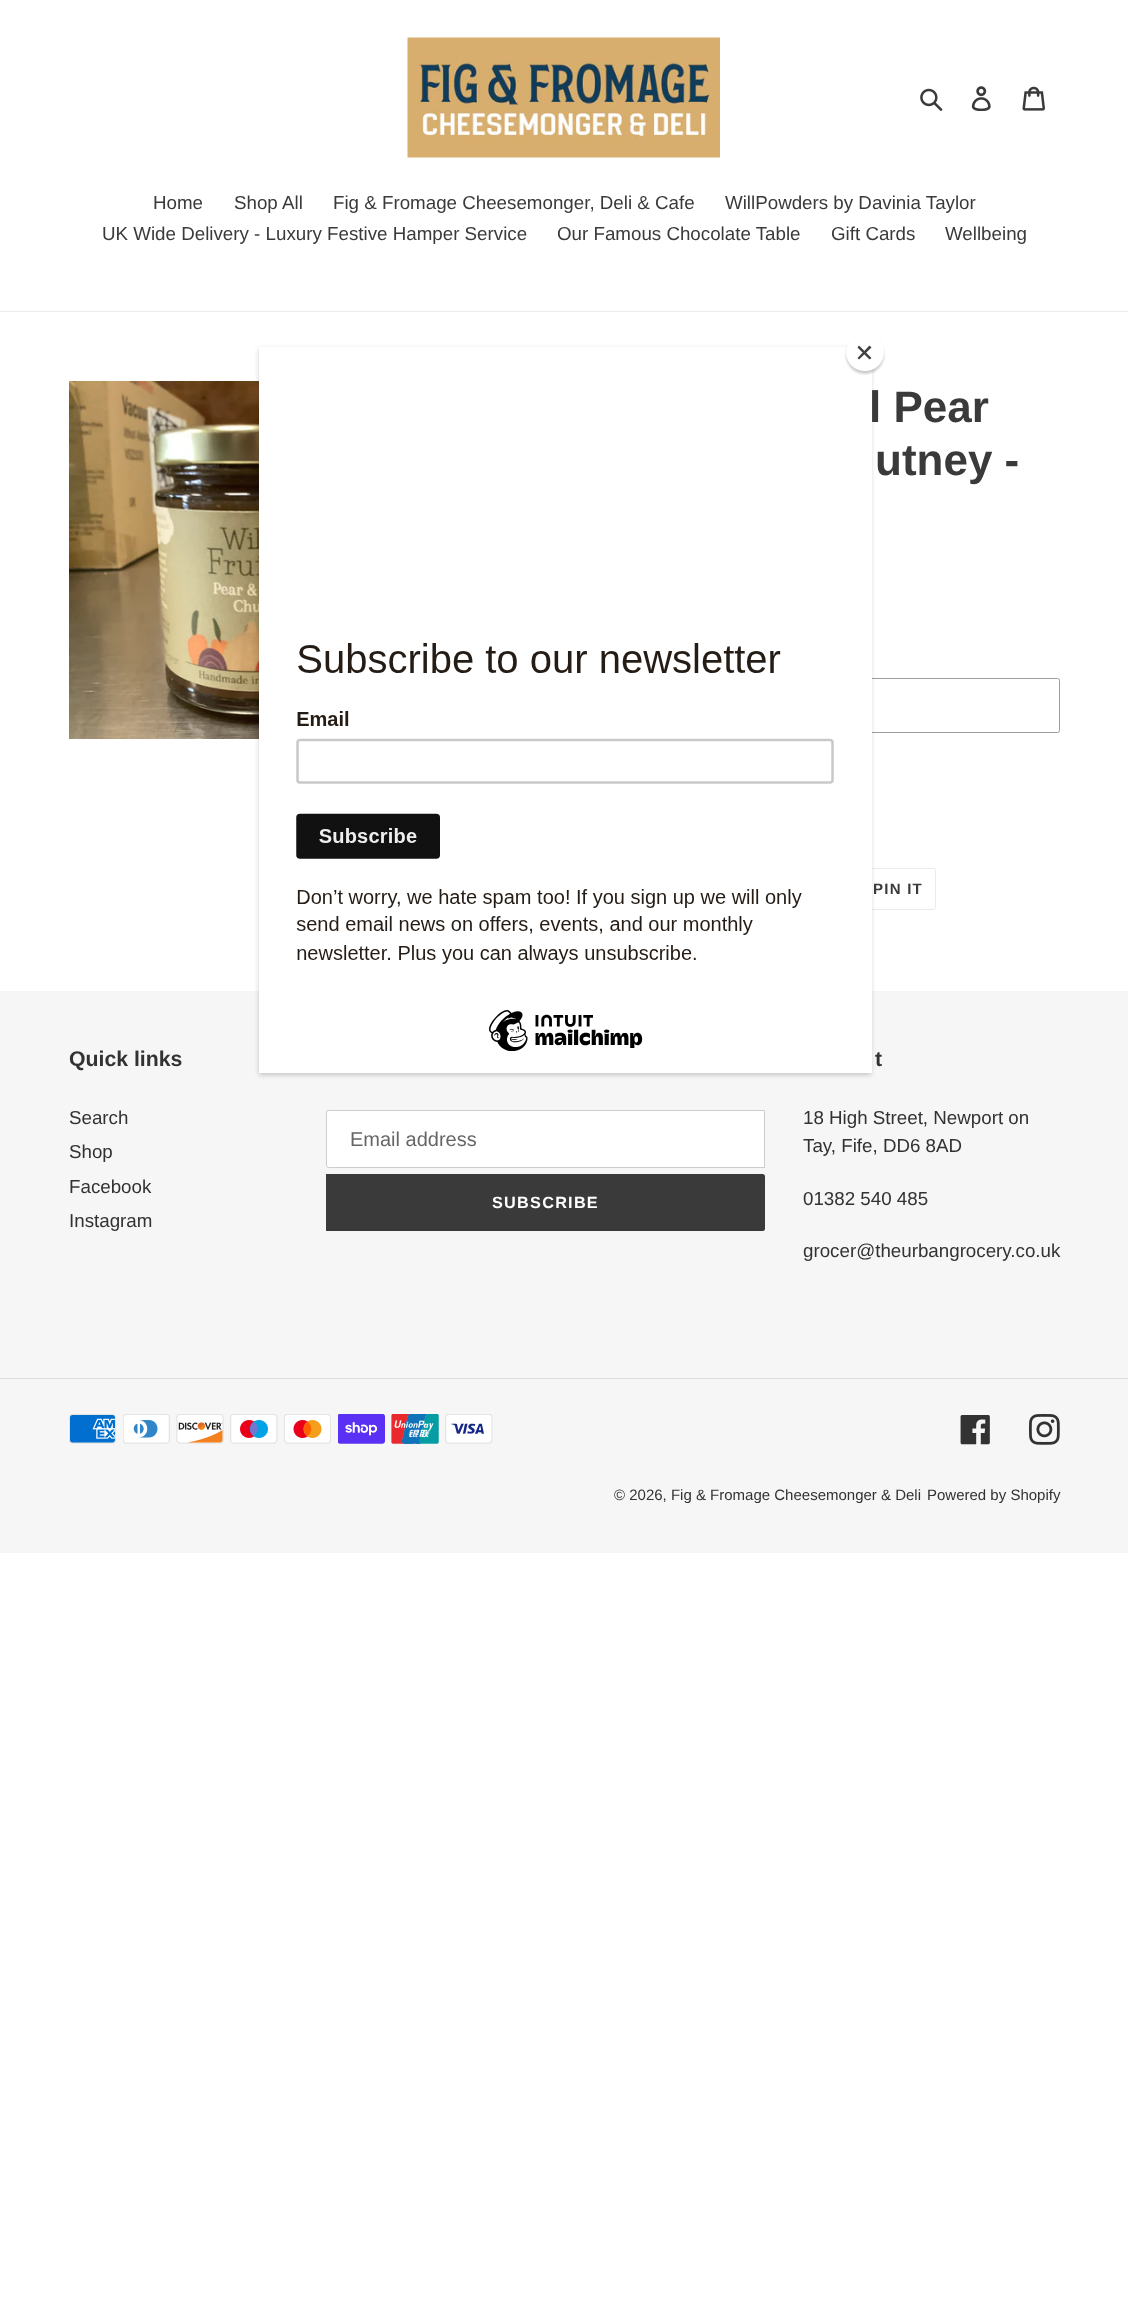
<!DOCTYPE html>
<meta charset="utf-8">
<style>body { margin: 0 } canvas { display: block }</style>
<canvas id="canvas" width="1128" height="2308"></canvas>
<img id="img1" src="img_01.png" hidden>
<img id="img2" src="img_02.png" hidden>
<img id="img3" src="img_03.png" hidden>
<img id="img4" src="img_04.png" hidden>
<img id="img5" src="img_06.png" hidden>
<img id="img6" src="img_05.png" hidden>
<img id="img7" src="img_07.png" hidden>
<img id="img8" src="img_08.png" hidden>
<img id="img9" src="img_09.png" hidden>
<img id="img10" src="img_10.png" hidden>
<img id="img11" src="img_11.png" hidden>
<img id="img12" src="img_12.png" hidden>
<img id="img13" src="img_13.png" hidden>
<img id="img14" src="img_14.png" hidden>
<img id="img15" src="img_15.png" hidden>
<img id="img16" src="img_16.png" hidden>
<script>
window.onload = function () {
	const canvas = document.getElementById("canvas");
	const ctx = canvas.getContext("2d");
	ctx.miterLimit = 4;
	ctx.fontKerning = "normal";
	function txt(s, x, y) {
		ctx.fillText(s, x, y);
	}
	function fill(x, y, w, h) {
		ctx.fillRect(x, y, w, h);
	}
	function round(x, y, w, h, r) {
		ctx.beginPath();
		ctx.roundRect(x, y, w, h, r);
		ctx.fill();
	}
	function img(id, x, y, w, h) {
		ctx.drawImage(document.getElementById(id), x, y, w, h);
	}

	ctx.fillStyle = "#FFFFFF";
	fill(0, 0, 1128, 2308);
	img("img1", 407, 37, 313, 121);
	img("img2", 920, 88, 23, 23);
	img("img3", 971, 86, 20, 25);
	img("img4", 1022, 86, 23, 25);
	ctx.fillStyle = "#EBEBEB";
	fill(0, 311, 1128, 1);
	img("img5", 69, 381, 190, 358);
	ctx.beginPath();
	ctx.roundRect(584.5, 678.5, 475, 54, 2);
	ctx.strokeStyle = "#9D9D9D";
	ctx.stroke();
	ctx.beginPath();
	ctx.roundRect(829.5, 868.5, 106, 41, 2);
	ctx.strokeStyle = "#EBEBEB";
	ctx.stroke();
	ctx.fillStyle = "#F6F6F6";
	fill(0, 991, 1128, 562);
	ctx.fillStyle = "rgba(0, 0, 0, 0.2)";
	ctx.filter = "blur(2.5px)";
	ctx.beginPath();
	ctx.rect(259, 349, 612, 726);
	ctx.fill();
	ctx.filter = "none";
	img("img6", 259, 347, 613, 726);
	ctx.filter = "blur(1px)";
	ctx.beginPath();
	ctx.roundRect(846, 336, 38, 38, 19);
	ctx.fill();
	ctx.filter = "none";
	ctx.fillStyle = "#FFFFFF";
	round(846, 334, 38, 37, 18.5);
	ctx.fillStyle = "#414141";
	ctx.beginPath();
	ctx.moveTo(869.5, 345.5);
	ctx.lineTo(871.5, 347.5);
	ctx.lineTo(859, 359.5);
	ctx.lineTo(857.5, 358);
	ctx.closePath();
	ctx.fill();
	ctx.beginPath();
	ctx.moveTo(857.5, 347.5);
	ctx.lineTo(859, 345.5);
	ctx.lineTo(871.5, 358);
	ctx.lineTo(869.5, 359.5);
	ctx.closePath();
	ctx.fill();
	ctx.fillStyle = "#FFFFFF";
	ctx.beginPath();
	ctx.roundRect(326.5, 1110.5, 438, 57, [2, 0, 0, 2]);
	ctx.fill();
	ctx.strokeStyle = "#CCCCCC";
	ctx.stroke();
	ctx.fillStyle = "#3A3A3A";
	ctx.beginPath();
	ctx.roundRect(326, 1174, 439, 57, [0, 2.5, 2.5, 0]);
	ctx.fill();
	ctx.fillStyle = "#DDDDDD";
	fill(0, 1378, 1128, 1);
	img("img7", 69, 1414, 47, 30);
	img("img8", 123, 1414, 47, 30);
	img("img9", 176, 1414, 48, 30);
	img("img10", 230, 1414, 48, 30);
	img("img11", 284, 1414, 47, 30);
	img("img12", 338, 1414, 47, 30);
	img("img13", 391, 1414, 48, 30);
	img("img14", 445, 1414, 48, 30);
	img("img15", 960, 1415, 30, 30);
	img("img16", 1029, 1414, 31, 31);
	ctx.font = "18.75px Liberation Sans";
	ctx.fillStyle = "#3A3A3A";
	txt("Home", 153, 209);
	txt("Shop All", 234, 209);
	txt("Fig & Fromage Cheesemonger, Deli & Cafe", 333, 209);
	txt("WillPowders by Davinia Taylor", 725, 209);
	txt("UK Wide Delivery - Luxury Festive Hamper Service", 102, 240);
	txt("Our Famous Chocolate Table", 557, 240);
	txt("Gift Cards", 831, 240);
	txt("Wellbeing", 945, 240);
	ctx.font = "bold 44px Liberation Sans";
	txt("l Pear", 869, 422);
	txt("utney -", 875, 475);
	ctx.letterSpacing = "1.25px";
	ctx.font = "bold 15px Liberation Sans";
	txt("PIN IT", 873, 894);
	ctx.letterSpacing = "0px";
	ctx.font = "bold 21.25px Liberation Sans";
	ctx.fillStyle = "#333232";
	txt("Quick links", 69, 1066);
	ctx.font = "18.75px Liberation Sans";
	txt("Search", 69, 1124);
	txt("Shop", 69, 1158);
	txt("Facebook", 69, 1193);
	txt("Instagram", 69, 1227);
	ctx.font = "20px Liberation Sans";
	ctx.fillStyle = "#666666";
	txt("Email address", 350, 1146);
	ctx.letterSpacing = "1.25px";
	ctx.font = "bold 16.25px Liberation Sans";
	ctx.fillStyle = "#FFFFFF";
	txt("SUBSCRIBE", 492, 1208);
	ctx.letterSpacing = "0px";
	ctx.font = "bold 21.25px Liberation Sans";
	ctx.fillStyle = "#333232";
	txt("t", 875, 1066);
	ctx.font = "18.75px Liberation Sans";
	txt("18 High Street, Newport on", 803, 1124);
	txt("Tay, Fife, DD6 8AD", 803, 1152);
	txt("01382 540 485", 803, 1205);
	txt("grocer@theurbangrocery.co.uk", 803, 1257);
	ctx.font = "15px Liberation Sans";
	txt("© 2026, Fig & Fromage Cheesemonger & Deli", 614, 1500);
	txt("Powered by Shopify", 927, 1500);
};
</script>
